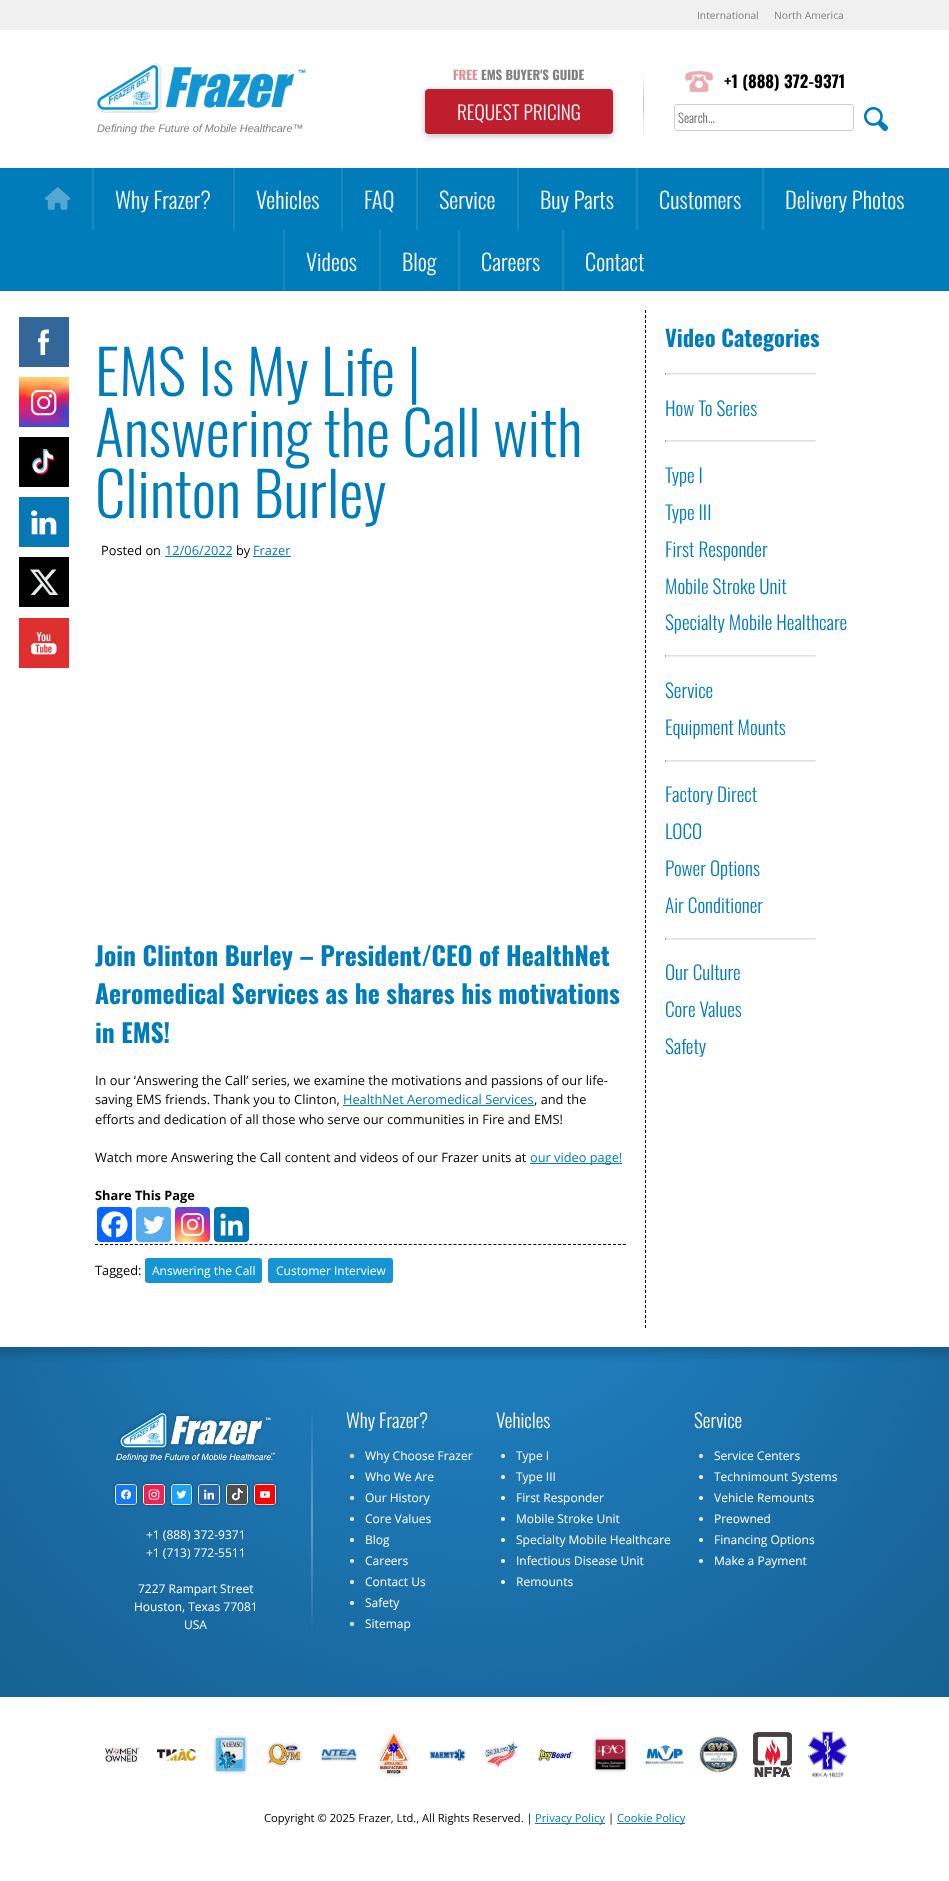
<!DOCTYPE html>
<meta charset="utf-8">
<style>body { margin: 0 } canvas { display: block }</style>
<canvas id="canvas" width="949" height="1881"></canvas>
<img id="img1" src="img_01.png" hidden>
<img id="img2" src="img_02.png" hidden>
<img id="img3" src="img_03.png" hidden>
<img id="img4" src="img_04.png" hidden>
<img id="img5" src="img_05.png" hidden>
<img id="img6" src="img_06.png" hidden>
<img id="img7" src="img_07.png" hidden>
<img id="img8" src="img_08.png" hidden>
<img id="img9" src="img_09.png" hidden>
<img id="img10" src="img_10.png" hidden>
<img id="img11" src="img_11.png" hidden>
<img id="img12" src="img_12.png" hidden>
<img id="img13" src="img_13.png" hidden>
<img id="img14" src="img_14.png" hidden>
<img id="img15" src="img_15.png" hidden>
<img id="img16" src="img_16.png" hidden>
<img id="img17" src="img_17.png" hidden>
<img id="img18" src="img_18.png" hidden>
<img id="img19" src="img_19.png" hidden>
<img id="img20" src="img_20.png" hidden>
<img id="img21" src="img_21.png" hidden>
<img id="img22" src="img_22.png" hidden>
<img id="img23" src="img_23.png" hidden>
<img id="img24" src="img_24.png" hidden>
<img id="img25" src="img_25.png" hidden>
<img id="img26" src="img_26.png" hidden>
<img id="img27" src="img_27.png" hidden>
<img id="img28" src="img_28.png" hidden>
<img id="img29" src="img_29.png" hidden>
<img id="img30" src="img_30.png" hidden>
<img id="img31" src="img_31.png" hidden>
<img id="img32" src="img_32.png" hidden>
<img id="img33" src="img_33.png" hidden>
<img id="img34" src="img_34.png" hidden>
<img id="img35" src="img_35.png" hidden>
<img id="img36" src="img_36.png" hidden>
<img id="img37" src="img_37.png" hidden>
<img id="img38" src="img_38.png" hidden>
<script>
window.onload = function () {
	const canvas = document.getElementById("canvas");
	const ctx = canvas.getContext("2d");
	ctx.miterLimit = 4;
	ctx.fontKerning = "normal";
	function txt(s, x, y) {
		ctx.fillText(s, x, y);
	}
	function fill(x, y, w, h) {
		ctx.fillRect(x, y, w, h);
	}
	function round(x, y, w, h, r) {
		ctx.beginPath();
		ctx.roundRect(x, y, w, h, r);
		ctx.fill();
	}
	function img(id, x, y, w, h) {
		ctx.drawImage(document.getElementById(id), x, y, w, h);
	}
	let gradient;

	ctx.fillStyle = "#FFFFFF";
	fill(0, 0, 949, 1881);
	img("img1", 19, 317, 50, 50);
	img("img2", 19, 377, 50, 50);
	img("img3", 19, 437, 50, 50);
	img("img4", 19, 497, 50, 50);
	img("img5", 19, 557, 50, 50);
	img("img6", 19, 618, 50, 50);
	ctx.fillStyle = "#F0F0F0";
	fill(0, 0, 949, 30);
	ctx.fillStyle = "rgba(0, 0, 0, 0.25)";
	ctx.filter = "blur(3px)";
	ctx.beginPath();
	ctx.roundRect(425, 91, 188, 45, 4);
	ctx.fill();
	ctx.filter = "none";
	ctx.fillStyle = "#BE1E2D";
	round(425, 89, 188, 45, 4);
	img("img7", 643, 72, 1, 66);
	img("img8", 685, 71, 28, 21);
	ctx.beginPath();
	ctx.roundRect(674.5, 104.5, 179, 26, 2.5);
	ctx.strokeStyle = "#CCCCCC";
	ctx.stroke();
	img("img9", 864, 107, 24, 24);
	img("img10", 95, 63, 211, 50);
	ctx.fillStyle = "#007CBA";
	fill(0, 168, 949, 123);
	img("img11", 45, 187, 26, 23);
	ctx.fillStyle = "#1A89C1";
	fill(92, 168, 2, 62);
	fill(233, 168, 2, 62);
	fill(341, 168, 2, 62);
	fill(416, 168, 2, 62);
	fill(517, 168, 2, 62);
	fill(636, 168, 2, 62);
	fill(762, 168, 2, 62);
	fill(283, 230, 2, 61);
	fill(379, 230, 2, 61);
	fill(458, 230, 2, 61);
	fill(562, 230, 2, 61);
	ctx.fillStyle = "#007CBA";
	fill(165, 556, 67, 1);
	fill(253, 556, 38, 1);
	fill(343, 1105, 191, 1);
	fill(530, 1163, 92, 1);
	ctx.fillStyle = "#0765FE";
	round(97, 1207, 35, 35, 4);
	img("img12", 101, 1211, 27, 27);
	ctx.fillStyle = "#55ACEE";
	round(136, 1207, 35, 35, 4);
	img("img13", 143, 1216, 22, 18);
	gradient = ctx.createRadialGradient(186, 1244, 0, 186, 1244, 45);
	gradient.addColorStop(0, "#FDF497");
	gradient.addColorStop(0.05, "#FDF497");
	gradient.addColorStop(0.45, "#FD5949");
	gradient.addColorStop(0.6, "#D6249F");
	gradient.addColorStop(0.9, "#285AEB");
	ctx.fillStyle = gradient;
	round(175, 1207, 35, 35, 4);
	img("img14", 181, 1213, 23, 23);
	ctx.fillStyle = "#0077B5";
	round(214, 1207, 35, 35, 4);
	img("img15", 220, 1213, 23, 23);
	ctx.beginPath();
	ctx.moveTo(95, 1244.5);
	ctx.lineTo(626, 1244.5);
	ctx.strokeStyle = "#000000";
	ctx.setLineDash([3, 1.98]);
	ctx.stroke();
	ctx.fillStyle = "#1595D3";
	round(145, 1258, 117, 25, 3);
	round(268, 1258, 125, 25, 3);
	ctx.beginPath();
	ctx.moveTo(645.5, 310);
	ctx.lineTo(645.5, 1328);
	ctx.setLineDash([3, 2]);
	ctx.stroke();
	ctx.fillStyle = "#E0E0E0";
	fill(665, 373, 151, 1);
	ctx.fillStyle = "#EEEEEE";
	fill(815, 373, 1, 2);
	fill(665, 374, 151, 1);
	ctx.fillStyle = "#9F9F9F";
	fill(665, 373, 1, 2);
	ctx.fillStyle = "#E0E0E0";
	fill(665, 440, 151, 1);
	ctx.fillStyle = "#EEEEEE";
	fill(815, 440, 1, 2);
	fill(665, 441, 151, 1);
	ctx.fillStyle = "#9F9F9F";
	fill(665, 440, 1, 2);
	ctx.fillStyle = "#E0E0E0";
	fill(665, 655, 151, 1);
	ctx.fillStyle = "#EEEEEE";
	fill(815, 655, 1, 2);
	fill(665, 656, 151, 1);
	ctx.fillStyle = "#9F9F9F";
	fill(665, 655, 1, 2);
	ctx.fillStyle = "#E0E0E0";
	fill(665, 760, 151, 1);
	ctx.fillStyle = "#EEEEEE";
	fill(815, 760, 1, 2);
	fill(665, 761, 151, 1);
	ctx.fillStyle = "#9F9F9F";
	fill(665, 760, 1, 2);
	ctx.fillStyle = "#E0E0E0";
	fill(665, 938, 151, 1);
	ctx.fillStyle = "#EEEEEE";
	fill(815, 938, 1, 2);
	fill(665, 939, 151, 1);
	ctx.fillStyle = "#9F9F9F";
	fill(665, 938, 1, 2);
	ctx.fillStyle = "#175E8E";
	fill(0, 1347, 949, 350);
	img("img16", 0, 1347, 949, 350);
	img("img17", 114, 1410, 162, 54);
	img("img18", 113, 1482, 26, 25);
	img("img19", 141, 1482, 26, 25);
	img("img20", 169, 1482, 25, 25);
	img("img21", 196, 1482, 26, 25);
	img("img22", 224, 1482, 26, 25);
	img("img23", 252, 1482, 26, 25);
	img("img24", 311, 1411, 2, 221);
	ctx.fillStyle = "#FFFFFF";
	ctx.beginPath();
	ctx.arc(352, 1456, 2, 0, Math.PI * 2);
	ctx.fill();
	ctx.beginPath();
	ctx.arc(352, 1477, 2, 0, Math.PI * 2);
	ctx.fill();
	ctx.beginPath();
	ctx.arc(352, 1498, 2, 0, Math.PI * 2);
	ctx.fill();
	ctx.beginPath();
	ctx.arc(352, 1519, 2, 0, Math.PI * 2);
	ctx.fill();
	ctx.beginPath();
	ctx.arc(352, 1540, 2, 0, Math.PI * 2);
	ctx.fill();
	ctx.beginPath();
	ctx.arc(352, 1561, 2, 0, Math.PI * 2);
	ctx.fill();
	ctx.beginPath();
	ctx.arc(352, 1582, 2, 0, Math.PI * 2);
	ctx.fill();
	ctx.beginPath();
	ctx.arc(352, 1603, 2, 0, Math.PI * 2);
	ctx.fill();
	ctx.beginPath();
	ctx.arc(352, 1624, 2, 0, Math.PI * 2);
	ctx.fill();
	ctx.beginPath();
	ctx.arc(503, 1456, 2, 0, Math.PI * 2);
	ctx.fill();
	ctx.beginPath();
	ctx.arc(503, 1477, 2, 0, Math.PI * 2);
	ctx.fill();
	ctx.beginPath();
	ctx.arc(503, 1498, 2, 0, Math.PI * 2);
	ctx.fill();
	ctx.beginPath();
	ctx.arc(503, 1519, 2, 0, Math.PI * 2);
	ctx.fill();
	ctx.beginPath();
	ctx.arc(503, 1540, 2, 0, Math.PI * 2);
	ctx.fill();
	ctx.beginPath();
	ctx.arc(503, 1561, 2, 0, Math.PI * 2);
	ctx.fill();
	ctx.beginPath();
	ctx.arc(503, 1582, 2, 0, Math.PI * 2);
	ctx.fill();
	ctx.beginPath();
	ctx.arc(701, 1456, 2, 0, Math.PI * 2);
	ctx.fill();
	ctx.beginPath();
	ctx.arc(701, 1477, 2, 0, Math.PI * 2);
	ctx.fill();
	ctx.beginPath();
	ctx.arc(701, 1498, 2, 0, Math.PI * 2);
	ctx.fill();
	ctx.beginPath();
	ctx.arc(701, 1519, 2, 0, Math.PI * 2);
	ctx.fill();
	ctx.beginPath();
	ctx.arc(701, 1540, 2, 0, Math.PI * 2);
	ctx.fill();
	ctx.beginPath();
	ctx.arc(701, 1561, 2, 0, Math.PI * 2);
	ctx.fill();
	img("img25", 104, 1746, 36, 18);
	img("img26", 157, 1749, 39, 12);
	img("img27", 213, 1735, 35, 39);
	img("img28", 266, 1741, 38, 26);
	img("img29", 320, 1748, 38, 13);
	img("img30", 378, 1733, 32, 44);
	img("img31", 429, 1748, 37, 14);
	img("img32", 484, 1741, 35, 27);
	img("img33", 537, 1748, 36, 14);
	img("img34", 592, 1736, 37, 37);
	img("img35", 645, 1745, 39, 19);
	img("img36", 699, 1736, 39, 37);
	img("img37", 753, 1732, 39, 45);
	img("img38", 808, 1730, 39, 48);
	ctx.fillStyle = "#007CBA";
	fill(535, 1823, 70, 1);
	fill(617, 1823, 68, 1);
	ctx.font = "10.25px Open Sans";
	ctx.fillStyle = "#808080";
	txt("International", 697, 19);
	txt("North America", 774, 19);
	ctx.font = "bold 12.8px Oswald";
	ctx.fillStyle = "#E38E96";
	txt("FREE", 453, 80);
	ctx.fillStyle = "#808080";
	txt("EMS BUYER'S GUIDE", 481, 80);
	ctx.font = "300 19.25px Oswald";
	ctx.fillStyle = "#FFFFFF";
	txt("REQUEST PRICING", 457, 120);
	ctx.font = "bold 16.75px Oswald";
	ctx.fillStyle = "#000000";
	txt("+1 (888) 372-9371", 724, 88);
	ctx.font = "300 12.8px Oswald";
	ctx.fillStyle = "#666666";
	txt("Search...", 678, 123);
	ctx.font = "italic 10.9px Liberation Sans";
	ctx.fillStyle = "#808080";
	txt("Defining the Future of Mobile Healthcare™", 97, 132);
	ctx.font = "300 22.5px Oswald";
	ctx.fillStyle = "#FFFFFF";
	txt("Why Frazer?", 115, 209);
	txt("Vehicles", 256, 209);
	txt("FAQ", 364, 209);
	txt("Service", 439, 209);
	txt("Buy Parts", 540, 209);
	txt("Customers", 659, 209);
	txt("Delivery Photos", 785, 209);
	txt("Videos", 306, 271);
	txt("Blog", 402, 271);
	txt("Careers", 481, 271);
	txt("Contact", 585, 271);
	ctx.font = "300 60.75px Oswald";
	ctx.fillStyle = "#007CBA";
	txt("EMS Is My Life |", 95, 396);
	txt("Answering the Call with", 95, 457);
	txt("Clinton Burley", 95, 518);
	ctx.font = "12.8px Open Sans";
	ctx.fillStyle = "#000000";
	txt("Posted on", 101, 555);
	ctx.fillStyle = "#007CBA";
	txt("12/06/2022", 165, 555);
	ctx.fillStyle = "#000000";
	txt("by", 236, 555);
	ctx.fillStyle = "#007CBA";
	txt("Frazer", 253, 555);
	ctx.font = "bold 25.6px Oswald";
	txt("Join Clinton Burley – President/CEO of HealthNet", 95, 966);
	txt("Aeromedical Services as he shares his motivations", 95, 1004);
	txt("in EMS!", 95, 1043);
	ctx.font = "12.8px Open Sans";
	ctx.fillStyle = "#000000";
	txt("In our ‘Answering the Call’ series, we examine the motivations and passions of our life-", 95, 1085);
	txt("saving EMS friends. Thank you to Clinton,", 95, 1104);
	ctx.fillStyle = "#007CBA";
	txt("HealthNet Aeromedical Services", 343, 1104);
	ctx.fillStyle = "#000000";
	txt(", and the", 534, 1104);
	txt("efforts and dedication of all those who serve our communities in Fire and EMS!", 95, 1124);
	txt("Watch more Answering the Call content and videos of our Frazer units at", 95, 1162);
	ctx.fillStyle = "#007CBA";
	txt("our video page!", 530, 1162);
	ctx.font = "bold 12.8px Open Sans";
	ctx.fillStyle = "#000000";
	txt("Share This Page", 95, 1200);
	ctx.font = "12.8px Open Sans";
	txt("Tagged:", 95, 1275);
	ctx.font = "12px Open Sans";
	ctx.fillStyle = "#FFFFFF";
	txt("Answering the Call", 152, 1275);
	txt("Customer Interview", 276, 1275);
	ctx.font = "bold 22.5px Oswald";
	ctx.fillStyle = "#007CBA";
	txt("Video Categories", 665, 347);
	ctx.font = "300 19.25px Oswald";
	txt("How To Series", 665, 416);
	txt("Type I", 665, 483);
	txt("Type III", 665, 520);
	txt("First Responder", 665, 557);
	txt("Mobile Stroke Unit", 665, 594);
	txt("Specialty Mobile Healthcare", 665, 630);
	txt("Service", 665, 698);
	txt("Equipment Mounts", 665, 735);
	txt("Factory Direct", 665, 802);
	txt("LOCO", 665, 839);
	txt("Power Options", 665, 876);
	txt("Air Conditioner", 665, 913);
	txt("Our Culture", 665, 980);
	txt("Core Values", 665, 1017);
	txt("Safety", 665, 1054);
	ctx.font = "12px Open Sans";
	ctx.fillStyle = "#FFFFFF";
	txt("+1 (888) 372-9371", 146, 1539);
	txt("+1 (713) 772-5511", 146, 1557);
	txt("7227 Rampart Street", 138, 1593);
	txt("Houston, Texas 77081", 134, 1611);
	txt("USA", 184, 1629);
	ctx.font = "300 19.25px Oswald";
	txt("Why Frazer?", 346, 1428);
	ctx.font = "12px Open Sans";
	txt("Why Choose Frazer", 365, 1460);
	txt("Who We Are", 365, 1481);
	txt("Our History", 365, 1502);
	txt("Core Values", 365, 1523);
	txt("Blog", 365, 1544);
	txt("Careers", 365, 1565);
	txt("Contact Us", 365, 1586);
	txt("Safety", 365, 1607);
	txt("Sitemap", 365, 1628);
	ctx.font = "300 19.25px Oswald";
	txt("Vehicles", 496, 1428);
	ctx.font = "12px Open Sans";
	txt("Type I", 516, 1460);
	txt("Type III", 516, 1481);
	txt("First Responder", 516, 1502);
	txt("Mobile Stroke Unit", 516, 1523);
	txt("Specialty Mobile Healthcare", 516, 1544);
	txt("Infectious Disease Unit", 516, 1565);
	txt("Remounts", 516, 1586);
	ctx.font = "300 19.25px Oswald";
	txt("Service", 694, 1428);
	ctx.font = "12px Open Sans";
	txt("Service Centers", 714, 1460);
	txt("Technimount Systems", 714, 1481);
	txt("Vehicle Remounts", 714, 1502);
	txt("Preowned", 714, 1523);
	txt("Financing Options", 714, 1544);
	txt("Make a Payment", 714, 1565);
	ctx.font = "11.2px Open Sans";
	ctx.fillStyle = "#000000";
	txt("Copyright © 2025 Frazer, Ltd., All Rights Reserved. |", 264, 1822);
	ctx.fillStyle = "#007CBA";
	txt("Privacy Policy", 535, 1822);
	ctx.fillStyle = "#000000";
	txt("|", 608, 1822);
	ctx.fillStyle = "#007CBA";
	txt("Cookie Policy", 617, 1822);
};
</script>
